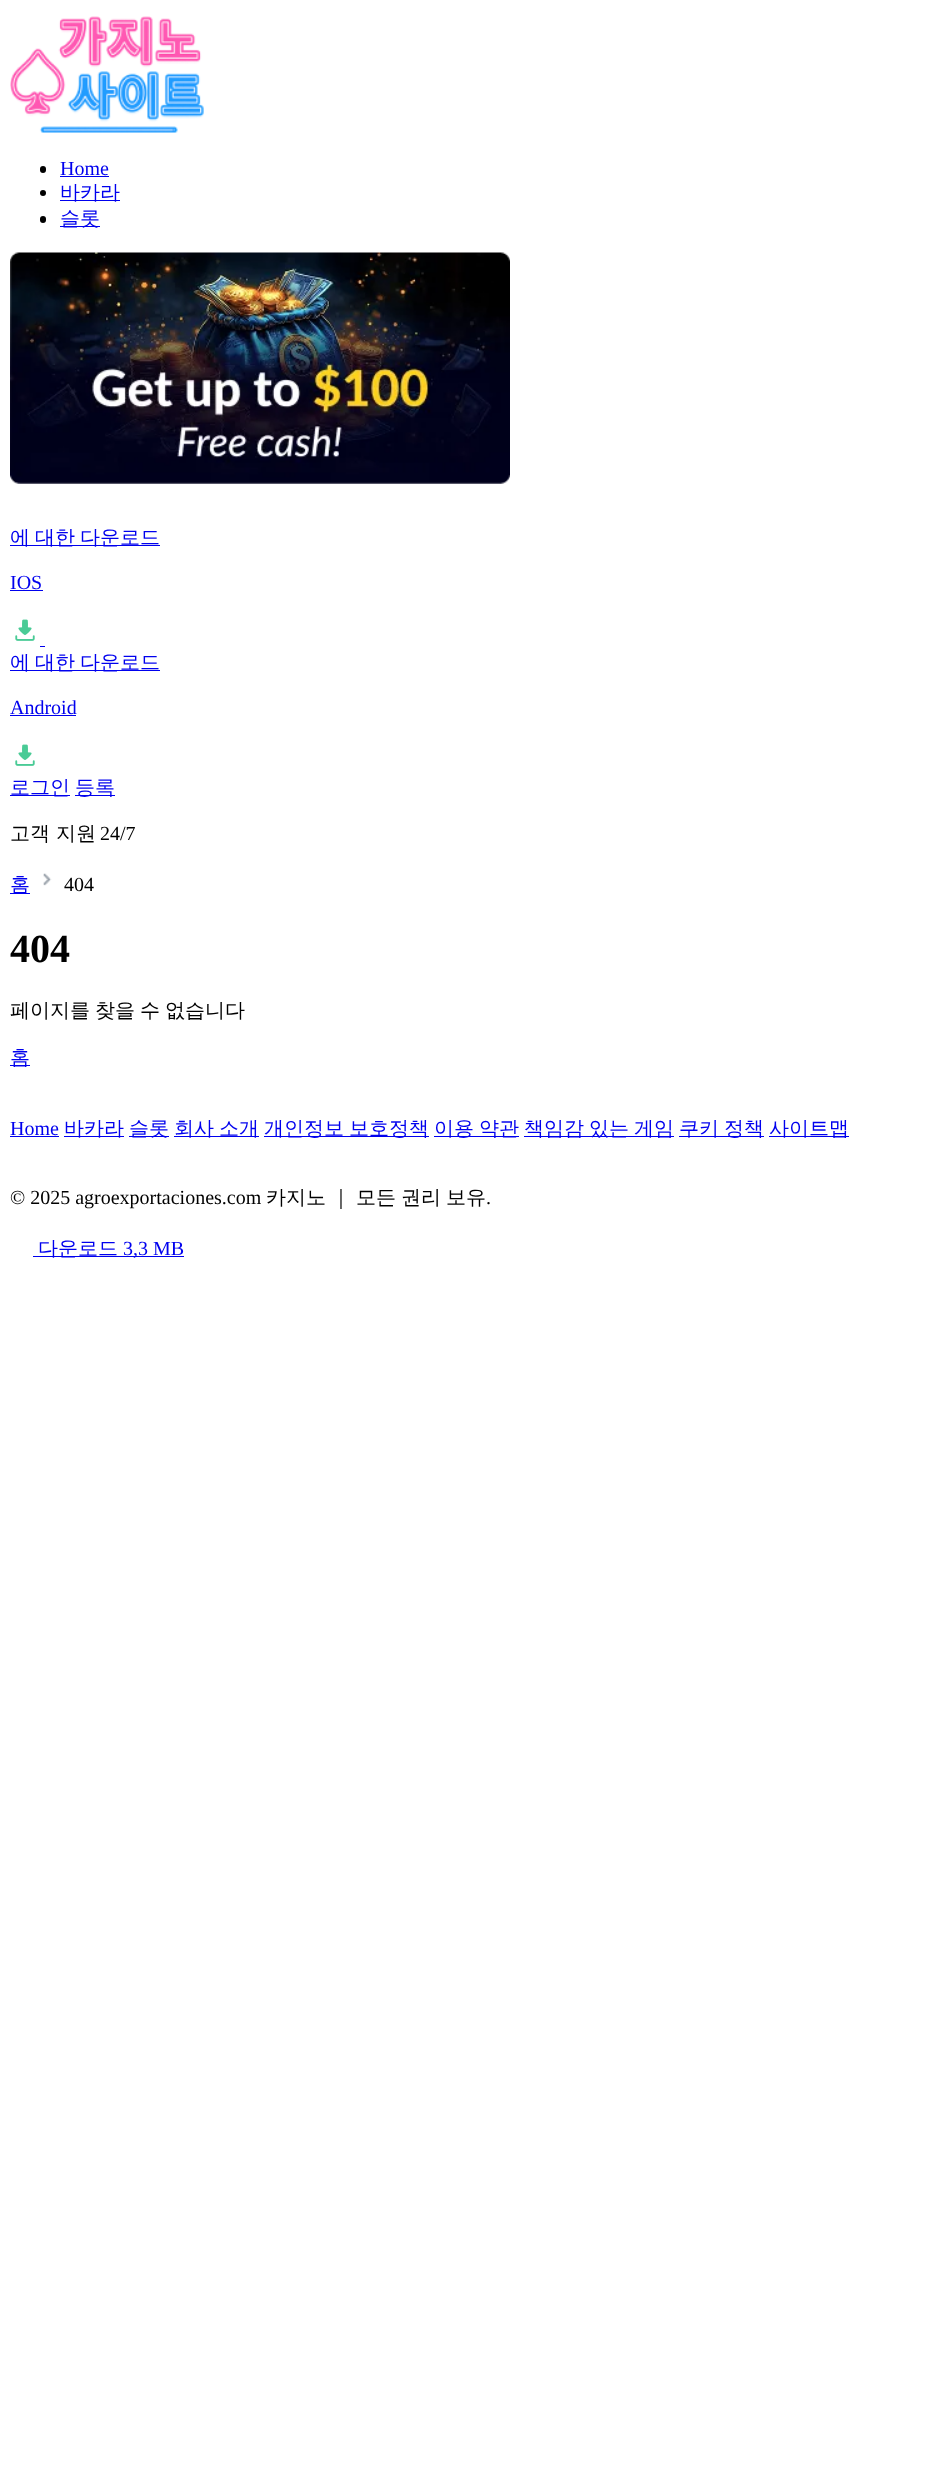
<!DOCTYPE html>
<meta charset="utf-8">
<style>body { margin: 0 } canvas { display: block }</style>
<canvas id="canvas" width="925" height="2475"></canvas>
<img id="img1" src="img_01.png" hidden>
<img id="img2" src="img_02.png" hidden>
<img id="img3" src="img_03.png" hidden>
<img id="img4" src="img_04.png" hidden>
<script>
window.onload = function () {
	const canvas = document.getElementById("canvas");
	const ctx = canvas.getContext("2d");
	ctx.miterLimit = 4;
	ctx.fontKerning = "normal";
	function txt(s, x, y) {
		ctx.fillText(s, x, y);
	}
	function fill(x, y, w, h) {
		ctx.fillRect(x, y, w, h);
	}
	function round(x, y, w, h, r) {
		ctx.beginPath();
		ctx.roundRect(x, y, w, h, r);
		ctx.fill();
	}
	function img(id, x, y, w, h) {
		ctx.drawImage(document.getElementById(id), x, y, w, h);
	}

	ctx.fillStyle = "#FFFFFF";
	fill(0, 0, 925, 2475);
	img("img1", 10, 16, 194, 117);
	ctx.fillStyle = "#000000";
	round(40, 166, 6, 7, 3);
	ctx.fillStyle = "#0000EE";
	fill(60, 176, 49, 1);
	ctx.fillStyle = "#000000";
	ctx.beginPath();
	ctx.arc(43, 193, 3, 0, Math.PI * 2);
	ctx.fill();
	ctx.fillStyle = "#0000EE";
	fill(60, 200, 60, 1);
	ctx.fillStyle = "#000000";
	round(40, 216, 6, 7, 3);
	ctx.fillStyle = "#0000EE";
	fill(60, 226, 40, 1);
	img("img2", 10, 252, 500, 232);
	fill(10, 545, 150, 1);
	fill(10, 590, 33, 1);
	img("img3", 15, 619, 20, 22);
	fill(40, 646, 5, 1);
	fill(10, 670, 150, 1);
	fill(10, 715, 66, 1);
	img("img3", 15, 744, 20, 22);
	fill(10, 795, 60, 1);
	fill(75, 795, 40, 1);
	fill(10, 893, 20, 1);
	img("img4", 43, 873, 9, 13);
	fill(10, 1065, 20, 1);
	fill(10, 1136, 49, 1);
	fill(64, 1136, 60, 1);
	fill(129, 1136, 40, 1);
	fill(174, 1136, 85, 1);
	fill(264, 1136, 165, 1);
	fill(434, 1136, 85, 1);
	fill(524, 1136, 150, 1);
	fill(679, 1136, 85, 1);
	fill(769, 1136, 80, 1);
	fill(33, 1256, 151, 1);
	ctx.font = "20px Liberation Serif";
	txt("Home", 60, 175);
	ctx.font = "500 20px WenQuanYi Zen Hei";
	txt("바카라", 60, 199);
	txt("슬롯", 60, 225);
	ctx.wordSpacing = "-1px";
	txt("에 대한 다운로드", 10, 544);
	ctx.wordSpacing = "0px";
	ctx.font = "20px Liberation Serif";
	txt("IOS", 10, 589);
	ctx.wordSpacing = "-1px";
	ctx.font = "500 20px WenQuanYi Zen Hei";
	txt("에 대한 다운로드", 10, 669);
	ctx.wordSpacing = "0px";
	ctx.font = "20px Liberation Serif";
	txt("Android", 10, 714);
	ctx.font = "500 20px WenQuanYi Zen Hei";
	txt("로그인", 10, 794);
	txt("등록", 75, 794);
	ctx.fillStyle = "#000000";
	txt("고객 지원", 10, 840);
	ctx.font = "20px Liberation Serif";
	txt("24/7", 100, 840);
	ctx.font = "500 20px WenQuanYi Zen Hei";
	ctx.fillStyle = "#0000EE";
	txt("홈", 10, 891);
	ctx.font = "20px Liberation Serif";
	ctx.fillStyle = "#000000";
	txt("404", 64, 891);
	ctx.font = "bold 40px Liberation Serif";
	txt("404", 10, 962);
	ctx.wordSpacing = "-1px";
	ctx.font = "500 20px WenQuanYi Zen Hei";
	txt("페이지를 찾을 수 없습니다", 10, 1017);
	ctx.wordSpacing = "0px";
	ctx.fillStyle = "#0000EE";
	txt("홈", 10, 1064);
	ctx.font = "20px Liberation Serif";
	txt("Home", 10, 1135);
	ctx.font = "500 20px WenQuanYi Zen Hei";
	txt("바카라", 64, 1135);
	txt("슬롯", 129, 1135);
	ctx.wordSpacing = "-1px";
	txt("회사 소개", 174, 1135);
	txt("개인정보 보호정책", 264, 1135);
	txt("이용 약관", 434, 1135);
	txt("책임감 있는 게임", 524, 1135);
	txt("쿠키 정책", 679, 1135);
	ctx.wordSpacing = "0px";
	txt("사이트맵", 769, 1135);
	ctx.font = "20px Liberation Serif";
	ctx.fillStyle = "#000000";
	txt("© 2025 agroexportaciones.com", 10, 1204);
	ctx.font = "500 20px WenQuanYi Zen Hei";
	txt("카지노", 266, 1204);
	txt("｜", 331, 1204);
	txt("모든", 356, 1204);
	txt("권리", 401, 1204);
	txt("보유", 446, 1204);
	ctx.font = "20px Liberation Serif";
	txt(".", 486, 1204);
	ctx.font = "500 20px WenQuanYi Zen Hei";
	ctx.fillStyle = "#0000EE";
	txt("다운로드", 38, 1255);
	ctx.font = "20px Liberation Serif";
	txt("3,3 MB", 123, 1255);
};
</script>
